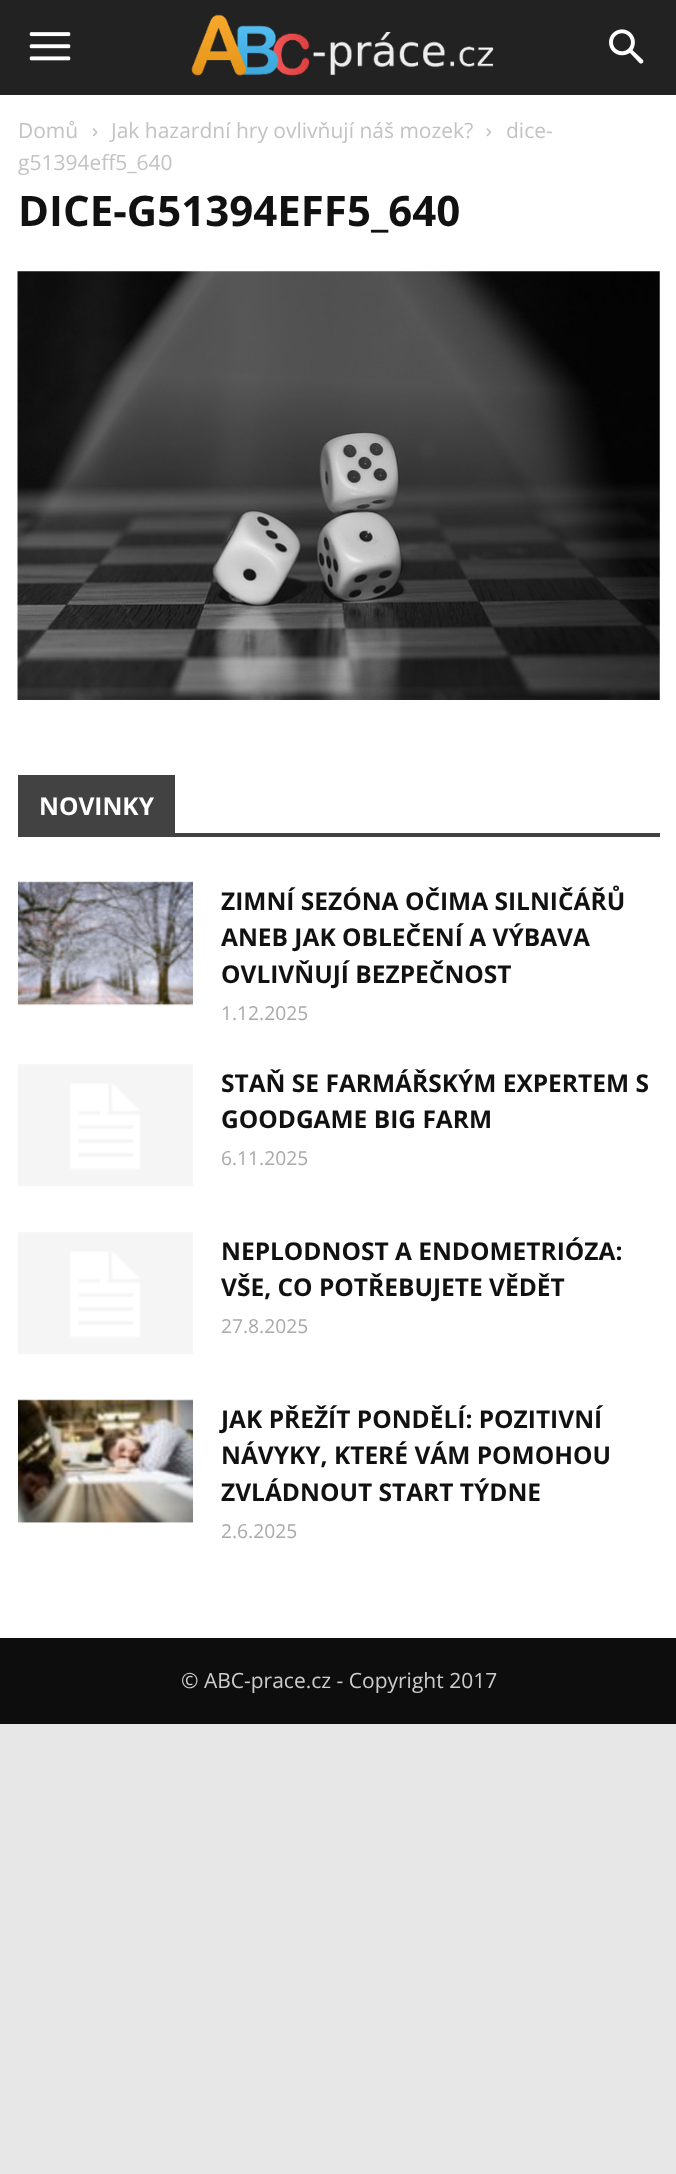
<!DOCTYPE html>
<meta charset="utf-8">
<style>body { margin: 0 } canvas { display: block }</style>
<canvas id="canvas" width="676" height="2174"></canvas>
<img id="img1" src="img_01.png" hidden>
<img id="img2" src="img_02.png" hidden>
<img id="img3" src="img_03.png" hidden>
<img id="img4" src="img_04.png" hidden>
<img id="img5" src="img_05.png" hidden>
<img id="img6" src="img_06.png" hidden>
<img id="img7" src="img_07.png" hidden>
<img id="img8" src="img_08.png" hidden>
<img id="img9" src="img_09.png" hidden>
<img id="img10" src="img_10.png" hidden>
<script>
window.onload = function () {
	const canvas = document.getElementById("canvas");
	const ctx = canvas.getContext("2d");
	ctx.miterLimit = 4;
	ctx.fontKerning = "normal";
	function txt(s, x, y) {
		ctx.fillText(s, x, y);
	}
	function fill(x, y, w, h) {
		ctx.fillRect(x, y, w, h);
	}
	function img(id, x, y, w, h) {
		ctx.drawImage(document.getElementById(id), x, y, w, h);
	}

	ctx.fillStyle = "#E7E7E7";
	fill(0, 0, 676, 2174);
	ctx.fillStyle = "#222222";
	fill(0, 0, 676, 95);
	img("img1", 29, 32, 42, 29);
	img("img2", 191, 14, 303, 62);
	img("img3", 609, 29, 35, 35);
	ctx.fillStyle = "#FFFFFF";
	fill(0, 95, 676, 1543);
	img("img4", 92, 128, 6, 9);
	img("img5", 486, 128, 6, 9);
	img("img6", 17, 271, 643, 429);
	ctx.fillStyle = "#424242";
	fill(18, 833, 642, 4);
	fill(18, 775, 157, 58);
	img("img7", 18, 881, 175, 125);
	img("img8", 18, 1064, 175, 122);
	img("img9", 18, 1232, 175, 122);
	img("img10", 18, 1399, 175, 124);
	ctx.fillStyle = "#0D0D0D";
	fill(0, 1638, 676, 86);
	ctx.font = "21px Open Sans";
	ctx.fillStyle = "#C3C3C3";
	txt("Domů", 18, 138);
	txt("Jak hazardní hry ovlivňují náš mozek?", 111, 138);
	txt("dice-", 506, 138);
	txt("g51394eff5_640", 18, 170);
	ctx.font = "bold 42px Open Sans";
	ctx.fillStyle = "#111111";
	txt("DICE-G51394EFF5_640", 18, 226);
	ctx.font = "bold 24.5px Open Sans";
	ctx.fillStyle = "#FFFFFF";
	txt("NOVINKY", 39, 815);
	ctx.fillStyle = "#111111";
	txt("ZIMNÍ SEZÓNA OČIMA SILNIČÁŘŮ", 221, 910);
	txt("ANEB JAK OBLEČENÍ A VÝBAVA", 221, 946);
	txt("OVLIVŇUJÍ BEZPEČNOST", 221, 983);
	ctx.font = "19.25px Open Sans";
	ctx.fillStyle = "#AAAAAA";
	txt("1.12.2025", 221, 1020);
	ctx.font = "bold 24.5px Open Sans";
	ctx.fillStyle = "#111111";
	txt("STAŇ SE FARMÁŘSKÝM EXPERTEM S", 221, 1092);
	txt("GOODGAME BIG FARM", 221, 1128);
	ctx.font = "19.25px Open Sans";
	ctx.fillStyle = "#AAAAAA";
	txt("6.11.2025", 221, 1165);
	ctx.font = "bold 24.5px Open Sans";
	ctx.fillStyle = "#111111";
	txt("NEPLODNOST A ENDOMETRIÓZA:", 221, 1260);
	txt("VŠE, CO POTŘEBUJETE VĚDĚT", 221, 1296);
	ctx.font = "19.25px Open Sans";
	ctx.fillStyle = "#AAAAAA";
	txt("27.8.2025", 221, 1333);
	ctx.font = "bold 24.5px Open Sans";
	ctx.fillStyle = "#111111";
	txt("JAK PŘEŽÍT PONDĚLÍ: POZITIVNÍ", 221, 1428);
	txt("NÁVYKY, KTERÉ VÁM POMOHOU", 221, 1464);
	txt("ZVLÁDNOUT START TÝDNE", 221, 1501);
	ctx.font = "19.25px Open Sans";
	ctx.fillStyle = "#AAAAAA";
	txt("2.6.2025", 221, 1538);
	ctx.font = "21px Open Sans";
	ctx.fillStyle = "#CCCCCC";
	txt("© ABC-prace.cz - Copyright 2017", 181, 1688);
};
</script>
